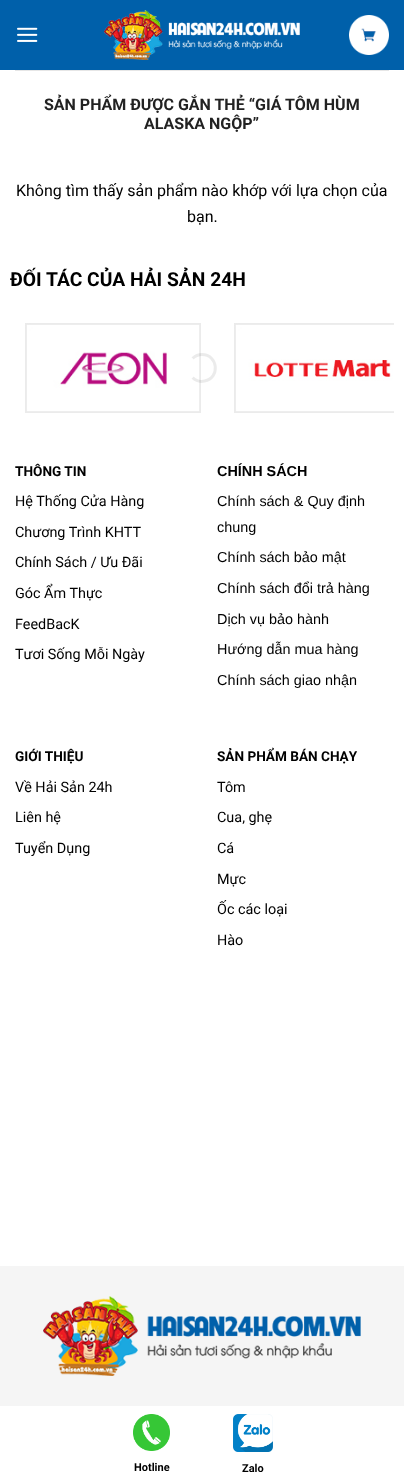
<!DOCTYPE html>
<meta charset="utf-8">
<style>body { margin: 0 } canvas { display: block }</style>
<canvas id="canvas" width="404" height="1481"></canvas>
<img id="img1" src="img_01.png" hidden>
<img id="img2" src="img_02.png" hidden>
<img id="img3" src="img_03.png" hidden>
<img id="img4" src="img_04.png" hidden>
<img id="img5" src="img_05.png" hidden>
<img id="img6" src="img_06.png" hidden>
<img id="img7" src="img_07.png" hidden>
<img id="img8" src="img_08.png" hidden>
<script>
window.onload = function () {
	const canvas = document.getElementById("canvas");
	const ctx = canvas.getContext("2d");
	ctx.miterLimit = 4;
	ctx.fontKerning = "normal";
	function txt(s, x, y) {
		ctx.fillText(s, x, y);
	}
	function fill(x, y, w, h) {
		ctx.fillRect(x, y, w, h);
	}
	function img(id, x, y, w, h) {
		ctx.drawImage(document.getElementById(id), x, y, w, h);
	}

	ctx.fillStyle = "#FFFFFF";
	fill(0, 0, 404, 1481);
	ctx.fillStyle = "#0060AA";
	fill(0, 0, 404, 70);
	img("img1", 17, 27, 21, 15);
	img("img2", 104, 10, 196, 50);
	img("img3", 349, 15, 40, 40);
	ctx.fillStyle = "#E6E6E6";
	fill(15, 70, 374, 1);
	img("img4", 25, 323, 176, 90);
	img("img5", 234, 323, 160, 90);
	ctx.beginPath();
	ctx.moveTo(192.5, 358.5);
	ctx.bezierCurveTo(195, 356, 198.5, 354.5, 202, 354.5);
	ctx.bezierCurveTo(218, 354.5, 220.5, 378, 204.5, 381);
	ctx.bezierCurveTo(200.5, 382, 195.5, 380.5, 192.5, 377.5);
	ctx.strokeStyle = "rgba(0, 0, 0, 0.08)";
	ctx.lineWidth = 3;
	ctx.stroke();
	ctx.beginPath();
	ctx.moveTo(192.5, 377.5);
	ctx.bezierCurveTo(187.5, 372.5, 187.5, 363.5, 192.5, 358.5);
	ctx.strokeStyle = "#FFFFFF";
	ctx.stroke();
	ctx.fillStyle = "#F5F5F5";
	fill(0, 1266, 404, 140);
	img("img6", 43, 1296, 318, 80);
	img("img7", 133, 1414, 37, 37);
	img("img8", 233, 1414, 40, 38);
	ctx.font = "bold 16px Roboto";
	ctx.fillStyle = "#222222";
	txt("SẢN PHẨM ĐƯỢC GẮN THẺ “GIÁ TÔM HÙM", 44, 110);
	txt("ALASKA NGỘP”", 144, 129);
	ctx.font = "16px Roboto";
	ctx.fillStyle = "#000000";
	txt("Không tìm thấy sản phẩm nào khớp với lựa chọn của", 16, 196);
	txt("bạn.", 187, 222);
	ctx.font = "bold 19.25px Roboto";
	txt("ĐỐI TÁC CỦA HẢI SẢN 24H", 10, 286);
	ctx.font = "bold 13.6px Roboto";
	txt("THÔNG TIN", 15, 476);
	ctx.font = "14.4px Roboto";
	txt("Hệ Thống Cửa Hàng", 15, 506);
	txt("Chương Trình KHTT", 15, 537);
	txt("Chính Sách / Ưu Đãi", 15, 567);
	txt("Góc Ẩm Thực", 15, 598);
	txt("FeedBacK", 15, 629);
	txt("Tươi Sống Mỗi Ngày", 15, 659);
	ctx.font = "bold 14.4px Liberation Sans";
	txt("CHÍNH SÁCH", 217, 476);
	ctx.font = "14.4px Liberation Sans";
	txt("Chính sách & Quy định", 217, 506);
	txt("chung", 217, 532);
	txt("Chính sách bảo mật", 217, 562);
	txt("Chính sách đổi trả hàng", 217, 593);
	txt("Dịch vụ bảo hành", 217, 624);
	txt("Hướng dẫn mua hàng", 217, 654);
	txt("Chính sách giao nhận", 217, 685);
	ctx.font = "bold 13.6px Roboto";
	txt("GIỚI THIỆU", 15, 761);
	ctx.font = "14.4px Roboto";
	txt("Về Hải Sản 24h", 15, 792);
	txt("Liên hệ", 15, 822);
	txt("Tuyển Dụng", 15, 853);
	ctx.font = "bold 13.6px Roboto";
	txt("SẢN PHẨM BÁN CHẠY", 217, 761);
	ctx.font = "14.4px Roboto";
	txt("Tôm", 217, 792);
	txt("Cua, ghẹ", 217, 822);
	txt("Cá", 217, 853);
	txt("Mực", 217, 884);
	txt("Ốc các loại", 217, 914);
	txt("Hào", 217, 945);
	ctx.font = "bold 11px Roboto";
	txt("Hotline", 134, 1471);
	txt("Zalo", 242, 1472);
};
</script>
